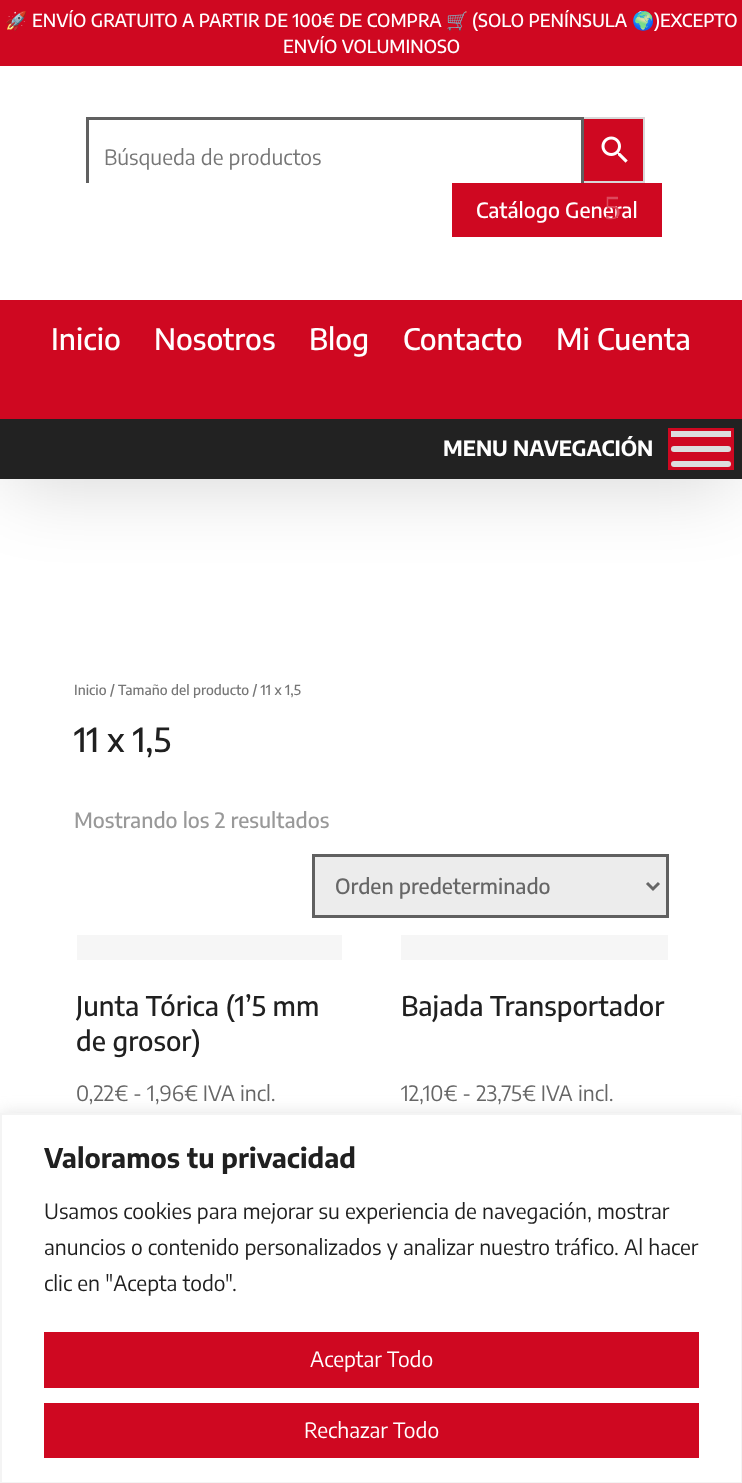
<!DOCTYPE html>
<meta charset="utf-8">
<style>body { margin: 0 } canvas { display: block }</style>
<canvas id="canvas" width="742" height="1483"></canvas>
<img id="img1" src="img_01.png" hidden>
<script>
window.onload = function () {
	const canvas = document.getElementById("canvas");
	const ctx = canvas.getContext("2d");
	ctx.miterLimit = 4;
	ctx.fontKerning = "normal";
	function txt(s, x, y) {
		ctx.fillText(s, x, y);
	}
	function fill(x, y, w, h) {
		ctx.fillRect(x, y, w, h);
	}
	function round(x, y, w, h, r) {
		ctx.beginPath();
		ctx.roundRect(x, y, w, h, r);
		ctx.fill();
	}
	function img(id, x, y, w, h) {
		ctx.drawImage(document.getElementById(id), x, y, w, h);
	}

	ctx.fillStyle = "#FFFFFF";
	fill(0, 0, 742, 1483);
	ctx.fillStyle = "rgba(0, 0, 0, 0.15)";
	ctx.filter = "blur(37.5px)";
	ctx.beginPath();
	ctx.rect(9, 27, 725, 461);
	ctx.fill();
	ctx.filter = "none";
	ctx.fillStyle = "#FFFFFF";
	fill(0, 66, 742, 234);
	ctx.fillStyle = "#CF0821";
	fill(0, 0, 742, 66);
	ctx.beginPath();
	ctx.rect(583, 118, 61, 64);
	ctx.fill();
	ctx.strokeStyle = "#D8D8D8";
	ctx.lineWidth = 2;
	ctx.stroke();
	ctx.save();
	ctx.beginPath();
	ctx.rect(86, 117, 498, 66);
	ctx.clip();
	ctx.strokeStyle = "#606060";
	ctx.lineWidth = 3;
	ctx.strokeRect(87.5, 118.5, 495, 78);
	ctx.restore();
	img("img1", 601, 136, 27, 27);
	fill(452, 183, 210, 54);
	fill(0, 300, 742, 119);
	ctx.fillStyle = "#222222";
	fill(0, 419, 742, 60);
	ctx.fillStyle = "#CF0821";
	fill(668, 428, 66, 42);
	ctx.fillStyle = "#DDDDDD";
	fill(671, 431, 60, 6);
	round(671, 446, 60, 6, 3);
	round(671, 461, 60, 6, 3);
	ctx.fillStyle = "#ECECEC";
	ctx.beginPath();
	ctx.rect(313.5, 855.5, 354, 61);
	ctx.fill();
	ctx.strokeStyle = "#606060";
	ctx.lineWidth = 3;
	ctx.stroke();
	ctx.beginPath();
	ctx.moveTo(647, 883);
	ctx.lineTo(653, 889);
	ctx.lineTo(659, 883);
	ctx.strokeStyle = "#666666";
	ctx.stroke();
	ctx.fillStyle = "#F6F6F6";
	fill(77, 935, 265, 25);
	fill(401, 935, 267, 25);
	ctx.fillStyle = "rgba(172, 171, 171, 0.3)";
	ctx.filter = "blur(7.5px)";
	ctx.beginPath();
	ctx.rect(0, 1112, 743, 370);
	ctx.fill();
	ctx.filter = "none";
	ctx.fillStyle = "#FFFFFF";
	ctx.beginPath();
	ctx.rect(1, 1114, 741, 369);
	ctx.fill();
	ctx.strokeStyle = "#F4F4F4";
	ctx.lineWidth = 2;
	ctx.stroke();
	ctx.fillStyle = "#CF0821";
	fill(44, 1332, 655, 56);
	fill(44, 1403, 655, 55);
	ctx.font = "18px Noto Color Emoji";
	ctx.fillStyle = "#FFFFFF";
	txt("🚀", 5, 27);
	ctx.font = "100 18px Encode Sans Condensed";
	txt("ENVÍO GRATUITO A PARTIR DE 100€ DE COMPRA", 32, 27);
	ctx.font = "18px Noto Color Emoji";
	txt("🛒", 446, 27);
	ctx.font = "100 18px Encode Sans Condensed";
	txt("(SOLO PENÍNSULA", 472, 27);
	ctx.font = "18px Noto Color Emoji";
	txt("🌍", 632, 27);
	ctx.font = "100 18px Encode Sans Condensed";
	txt(")EXCEPTO", 654, 27);
	txt("ENVÍO VOLUMINOSO", 283, 53);
	ctx.font = "100 21px 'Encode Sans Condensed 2'";
	ctx.fillStyle = "#767676";
	txt("Búsqueda de productos", 104, 165);
	ctx.font = "100 21px Encode Sans Condensed";
	ctx.fillStyle = "#FFFFFF";
	txt("Catálogo General", 476, 218);
	ctx.font = "34px Liberation Serif";
	ctx.fillStyle = "#DC495C";
	txt("5", 604, 219);
	ctx.font = "100 29.5px Encode Sans Condensed";
	ctx.fillStyle = "#FFFFFF";
	txt("Inicio", 51, 350);
	txt("Nosotros", 154, 350);
	txt("Blog", 309, 350);
	txt("Contacto", 403, 350);
	txt("Mi Cuenta", 556, 350);
	ctx.font = "100 21px 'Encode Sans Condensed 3'";
	txt("MENU NAVEGACIÓN", 443, 456);
	ctx.font = "100 13.75px Encode Sans Condensed";
	ctx.fillStyle = "#767676";
	txt("Inicio / Tamaño del producto / 11 x 1,5", 74, 695);
	ctx.font = "100 33px Encode Sans Condensed";
	ctx.fillStyle = "#202020";
	txt("11 x 1,5", 74, 752);
	ctx.font = "100 21px Encode Sans Condensed";
	ctx.fillStyle = "#999999";
	txt("Mostrando los 2 resultados", 74, 828);
	ctx.fillStyle = "#666666";
	txt("Orden predeterminado", 335, 894);
	ctx.font = "100 27px Encode Sans Condensed";
	ctx.fillStyle = "#202020";
	txt("Junta Tórica (1’5 mm", 76, 1016);
	txt("de grosor)", 76, 1051);
	ctx.font = "100 21px 'Encode Sans Condensed 2'";
	ctx.fillStyle = "#666666";
	txt("0,22€ - 1,96€ IVA incl.", 76, 1101);
	ctx.font = "100 27px Encode Sans Condensed";
	ctx.fillStyle = "#202020";
	txt("Bajada Transportador", 401, 1016);
	ctx.font = "100 21px 'Encode Sans Condensed 2'";
	ctx.fillStyle = "#666666";
	txt("12,10€ - 23,75", 401, 1101);
	txt("€ IVA incl.", 522, 1101);
	ctx.font = "100 27px 'Encode Sans Condensed 3'";
	ctx.fillStyle = "#202020";
	txt("Valoramos tu privacidad", 44, 1168);
	ctx.font = "100 21px 'Encode Sans Condensed 2'";
	txt("Usamos cookies para mejorar su experiencia de navegación, mostrar", 44, 1219);
	txt("anuncios o contenido personalizados y analizar nuestro tráfico. Al hacer", 44, 1255);
	txt("clic en \"Acepta todo\".", 44, 1291);
	ctx.fillStyle = "#FFFFFF";
	txt("Aceptar Todo", 310, 1367);
	txt("Rechazar Todo", 304, 1438);
};
</script>
